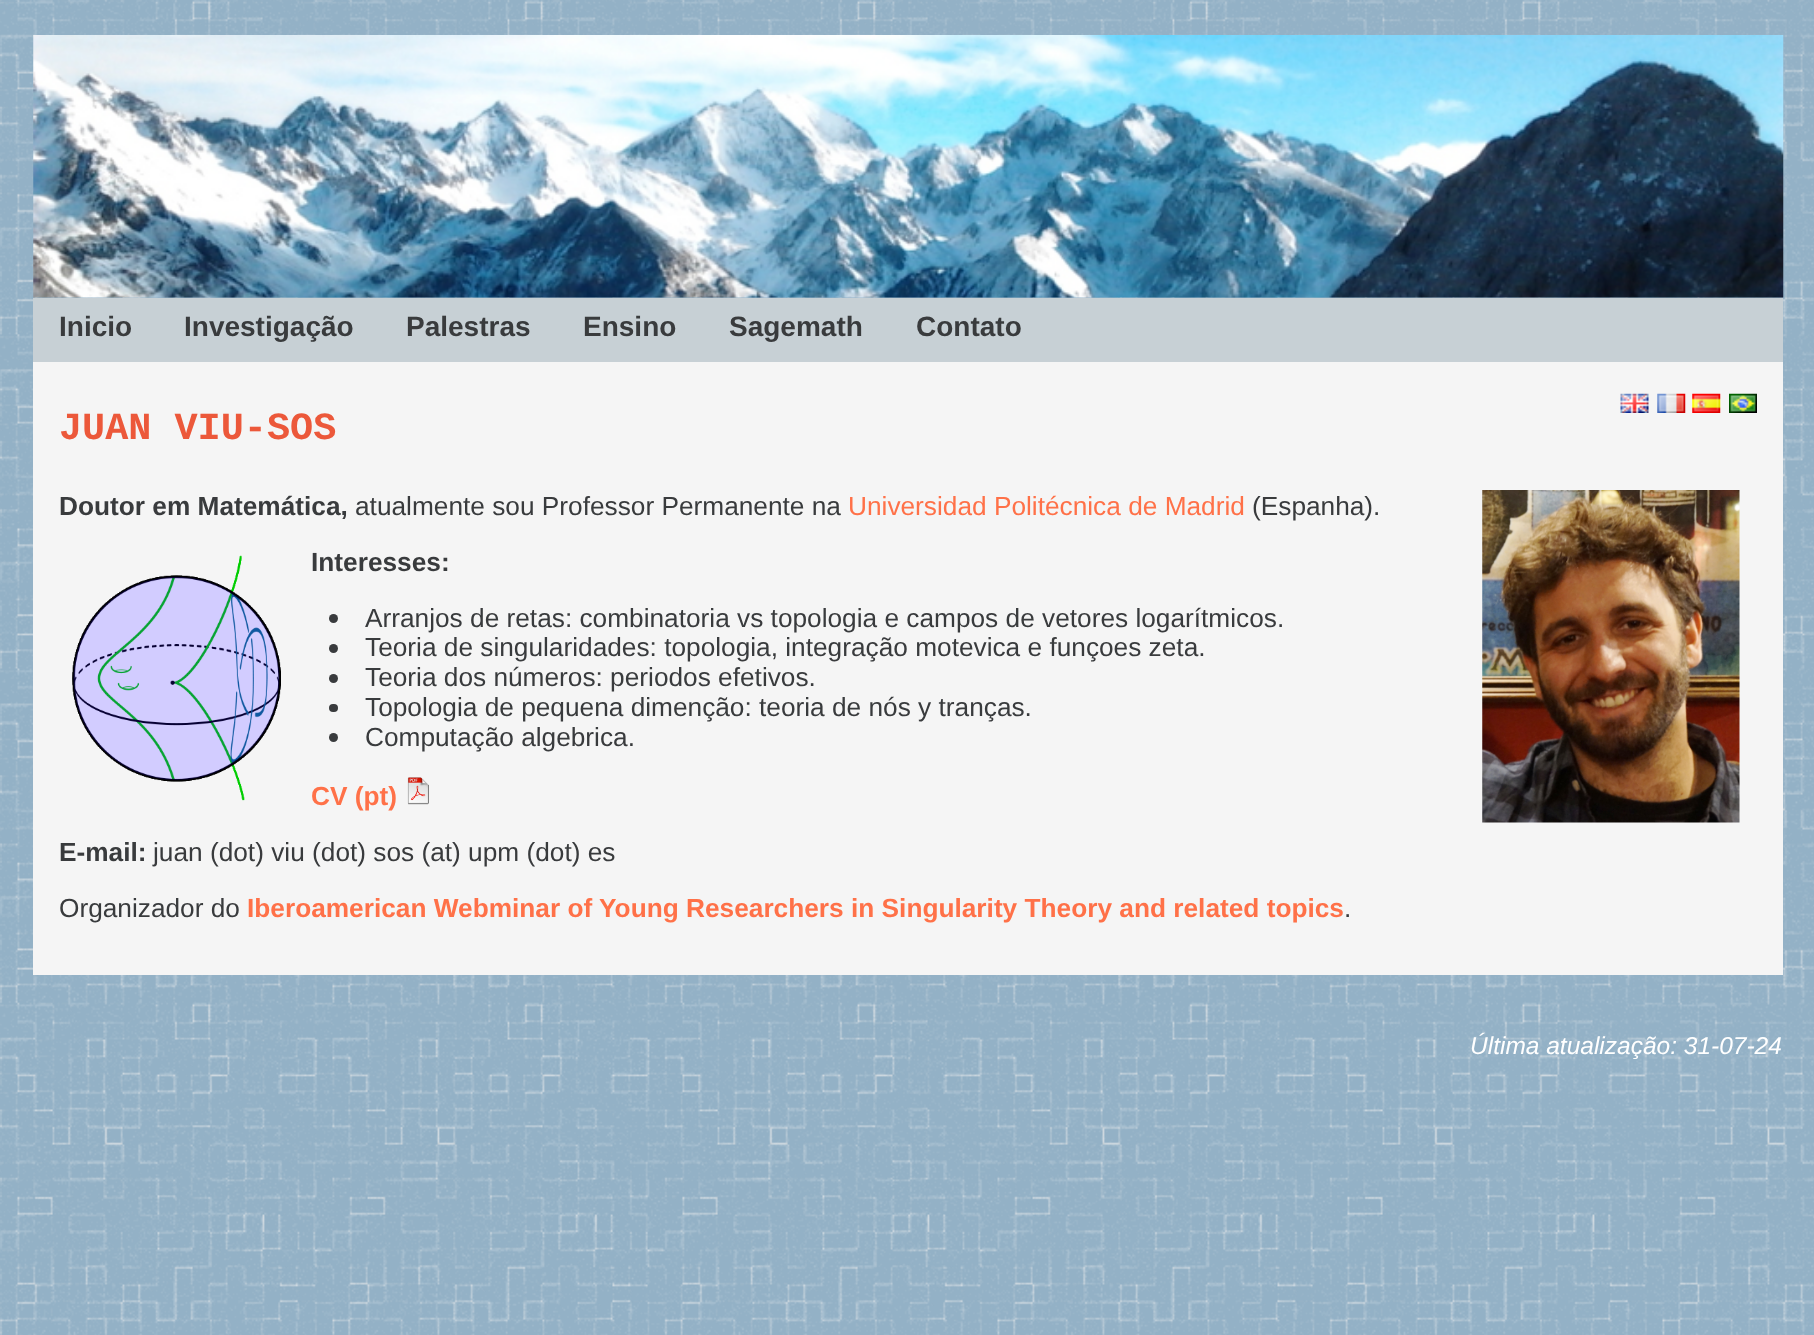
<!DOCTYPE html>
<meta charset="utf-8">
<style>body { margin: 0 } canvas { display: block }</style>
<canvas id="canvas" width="1814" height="1335"></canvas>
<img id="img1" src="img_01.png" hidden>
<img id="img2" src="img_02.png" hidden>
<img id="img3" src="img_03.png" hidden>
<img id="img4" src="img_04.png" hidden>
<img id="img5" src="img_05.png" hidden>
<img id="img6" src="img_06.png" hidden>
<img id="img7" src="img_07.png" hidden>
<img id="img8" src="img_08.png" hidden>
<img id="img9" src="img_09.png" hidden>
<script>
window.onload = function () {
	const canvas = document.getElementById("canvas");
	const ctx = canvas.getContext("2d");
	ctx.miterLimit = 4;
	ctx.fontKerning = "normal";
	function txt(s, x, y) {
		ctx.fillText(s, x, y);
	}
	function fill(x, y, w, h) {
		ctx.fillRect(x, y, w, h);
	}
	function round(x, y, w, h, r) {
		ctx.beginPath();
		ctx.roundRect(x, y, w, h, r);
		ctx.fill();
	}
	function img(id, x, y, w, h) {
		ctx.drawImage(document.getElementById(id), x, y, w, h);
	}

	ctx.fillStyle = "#93B1C6";
	fill(0, 0, 1814, 1335);
	img("img1", 0, 0, 1814, 1335);
	img("img2", 33, 35, 1751, 263);
	ctx.fillStyle = "#C7D0D5";
	fill(33, 298, 1750, 64);
	ctx.fillStyle = "#F5F5F5";
	fill(33, 362, 1750, 613);
	img("img3", 1620, 393, 29, 20);
	img("img4", 1657, 393, 29, 20);
	img("img5", 1692, 393, 29, 20);
	img("img6", 1729, 393, 28, 20);
	img("img7", 1482, 490, 258, 333);
	img("img8", 72, 555, 209, 246);
	ctx.fillStyle = "#393B3D";
	ctx.beginPath();
	ctx.arc(333.5, 618.5, 4.5, 0, Math.PI * 2);
	ctx.fill();
	ctx.beginPath();
	ctx.arc(333.5, 648.5, 4.5, 0, Math.PI * 2);
	ctx.fill();
	ctx.beginPath();
	ctx.arc(333.5, 678.5, 4.5, 0, Math.PI * 2);
	ctx.fill();
	round(329, 704, 9, 8, 4);
	ctx.beginPath();
	ctx.arc(333.5, 737.5, 4.5, 0, Math.PI * 2);
	ctx.fill();
	img("img9", 407, 777, 22, 28);
	ctx.font = "bold 28px Liberation Sans";
	txt("Inicio", 59, 336);
	txt("Investigação", 184, 336);
	txt("Palestras", 406, 336);
	txt("Ensino", 583, 336);
	txt("Sagemath", 729, 336);
	txt("Contato", 916, 336);
	ctx.font = "bold 38.5px Liberation Mono";
	ctx.fillStyle = "#EC583A";
	txt("JUAN VIU-SOS", 59, 439);
	ctx.font = "bold 26.25px Liberation Sans";
	ctx.fillStyle = "#393B3D";
	txt("Doutor em Matemática,", 59, 515);
	ctx.font = "26.25px Liberation Sans";
	txt("atualmente sou Professor Permanente na", 355, 515);
	ctx.fillStyle = "#FF7148";
	txt("Universidad Politécnica de Madrid", 848, 515);
	ctx.fillStyle = "#393B3D";
	txt("(Espanha).", 1252, 515);
	ctx.font = "bold 26.25px Liberation Sans";
	txt("Interesses:", 311, 571);
	ctx.font = "26.25px Liberation Sans";
	txt("Arranjos de retas: combinatoria vs topologia e campos de vetores logarítmicos.", 365, 627);
	txt("Teoria de singularidades: topologia, integração motevica e funçoes zeta.", 365, 656);
	txt("Teoria dos números: periodos efetivos.", 365, 686);
	txt("Topologia de pequena dimenção: teoria de nós y tranças.", 365, 716);
	txt("Computação algebrica.", 365, 746);
	ctx.font = "bold 26.25px Liberation Sans";
	ctx.fillStyle = "#FF7148";
	txt("CV (pt)", 311, 805);
	ctx.fillStyle = "#393B3D";
	txt("E-mail:", 59, 861);
	ctx.font = "26.25px Liberation Sans";
	txt("juan (dot) viu (dot) sos (at) upm (dot) es", 153, 861);
	txt("Organizador do", 59, 917);
	ctx.font = "bold 26.25px Liberation Sans";
	ctx.fillStyle = "#FF7148";
	txt("Iberoamerican Webminar of Young Researchers in Singularity Theory and related topics", 247, 917);
	ctx.font = "26.25px Liberation Sans";
	ctx.fillStyle = "#393B3D";
	txt(".", 1344, 917);
	ctx.font = "italic 24.5px Liberation Sans";
	ctx.fillStyle = "#FFFFFF";
	txt("Última atualização: 31-07-24", 1470, 1054);
};
</script>
